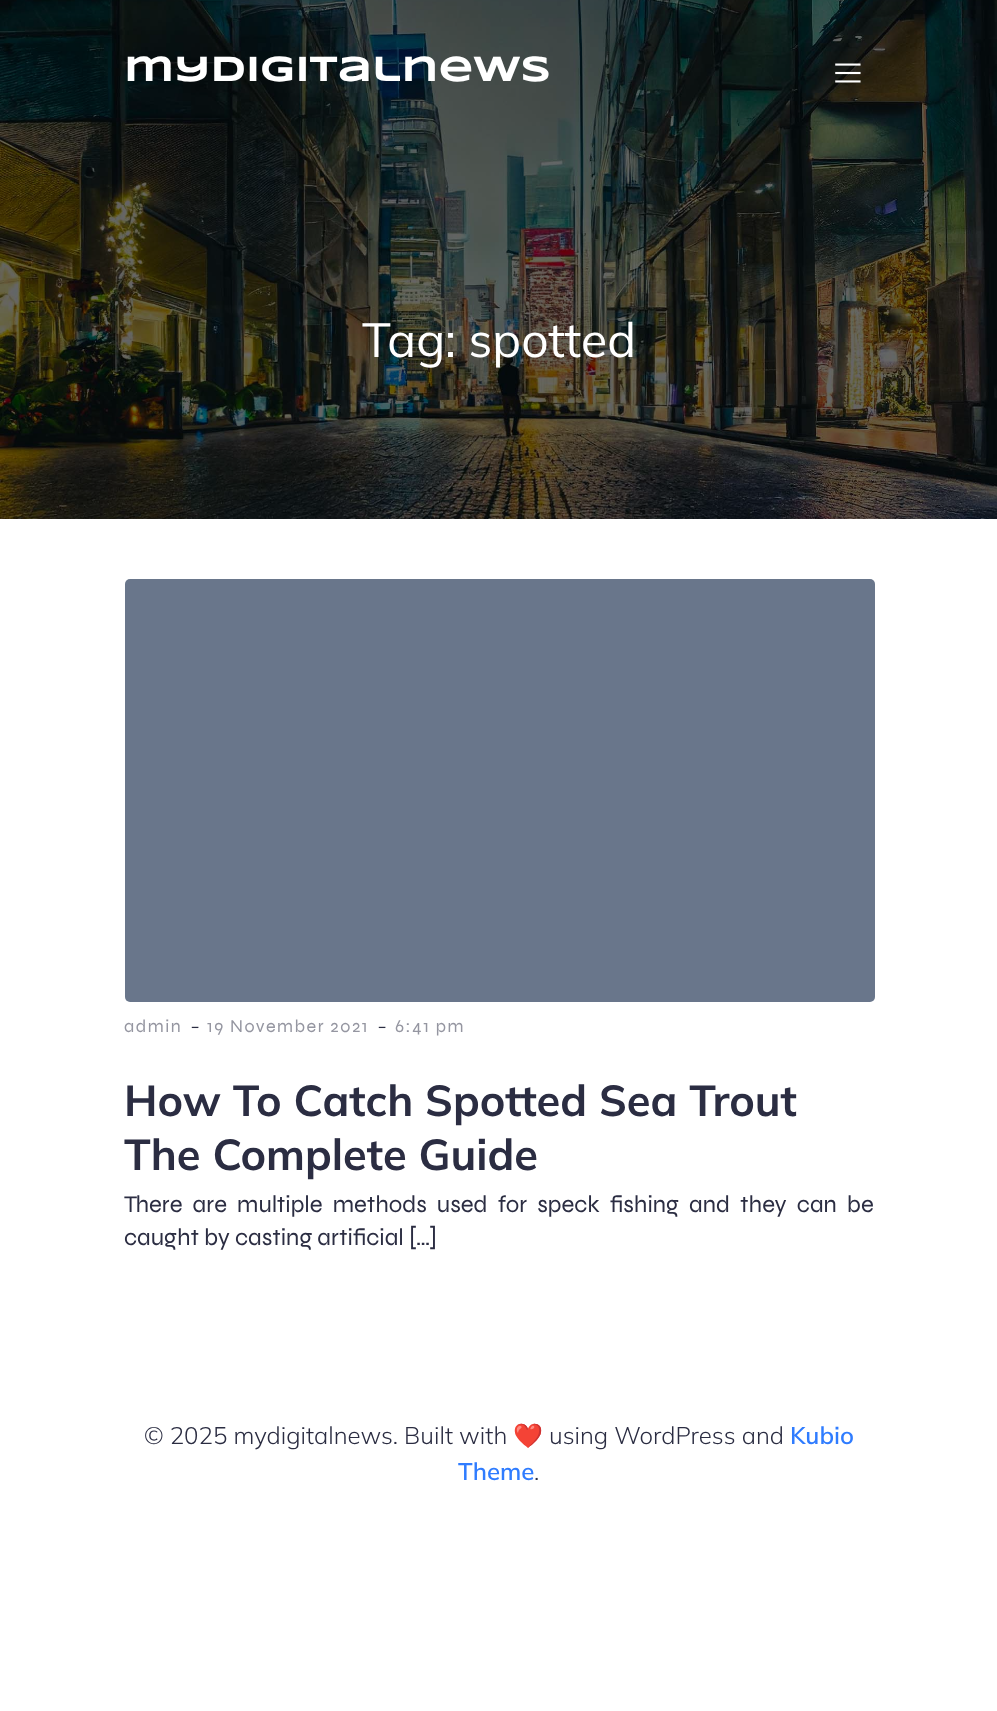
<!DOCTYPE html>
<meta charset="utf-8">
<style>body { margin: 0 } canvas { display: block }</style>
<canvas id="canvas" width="997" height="1711"></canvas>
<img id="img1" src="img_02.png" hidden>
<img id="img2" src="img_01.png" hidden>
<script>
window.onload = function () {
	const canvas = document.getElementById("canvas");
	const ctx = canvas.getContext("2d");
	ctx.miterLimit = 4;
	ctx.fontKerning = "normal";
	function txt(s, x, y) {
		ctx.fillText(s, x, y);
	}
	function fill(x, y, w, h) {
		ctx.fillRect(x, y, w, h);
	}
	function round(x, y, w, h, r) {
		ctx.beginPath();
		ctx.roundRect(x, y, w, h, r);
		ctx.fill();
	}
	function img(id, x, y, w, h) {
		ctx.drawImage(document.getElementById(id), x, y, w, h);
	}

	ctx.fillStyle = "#FFFFFF";
	fill(0, 0, 997, 1711);
	img("img1", 0, 0, 997, 519);
	img("img2", 835, 63, 26, 20);
	ctx.fillStyle = "#69768B";
	round(125, 579, 750, 423, 5);
	ctx.font = "bold 36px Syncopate";
	ctx.fillStyle = "#FFFFFF";
	txt("mydigitalnews", 124, 81);
	ctx.font = "48px Mulish";
	txt("Tag: spotted", 362, 357);
	ctx.letterSpacing = "1.5px";
	ctx.font = "18px Syne";
	ctx.fillStyle = "#9596A1";
	txt("admin", 124, 1032);
	ctx.letterSpacing = "0px";
	ctx.font = "300 24px Mulish";
	ctx.fillStyle = "#2B2D42";
	txt("-", 190, 1034);
	ctx.letterSpacing = "1.5px";
	ctx.font = "18px Syne";
	ctx.fillStyle = "#9596A1";
	txt("19 November 2021", 207, 1032);
	ctx.letterSpacing = "0px";
	ctx.font = "300 24px Mulish";
	ctx.fillStyle = "#2B2D42";
	txt("-", 377, 1034);
	ctx.letterSpacing = "1.5px";
	ctx.font = "18px Syne";
	ctx.fillStyle = "#9596A1";
	txt("6:41 pm", 395, 1032);
	ctx.letterSpacing = "0px";
	ctx.font = "bold 43.25px Mulish";
	ctx.fillStyle = "#2B2D42";
	txt("How To Catch Spotted Sea Trout", 124, 1116);
	txt("The Complete Guide", 124, 1170);
	ctx.wordSpacing = "5px";
	ctx.font = "24px Syne";
	txt("There are multiple methods used for speck fishing and they can be", 124, 1212);
	ctx.wordSpacing = "0px";
	txt("caught by casting artificial […]", 124, 1245);
	ctx.font = "300 24px Mulish";
	txt("© 2025 mydigitalnews. Built with", 144, 1444);
	ctx.font = "24px Noto Color Emoji";
	txt("❤️", 513, 1444);
	ctx.font = "300 24px Mulish";
	txt("using WordPress and", 549, 1444);
	ctx.font = "600 24px Mulish";
	ctx.fillStyle = "#2F7CFF";
	txt("Kubio", 790, 1444);
	txt("Theme", 458, 1480);
	ctx.font = "300 24px Mulish";
	ctx.fillStyle = "#2B2D42";
	txt(".", 534, 1480);
};
</script>
